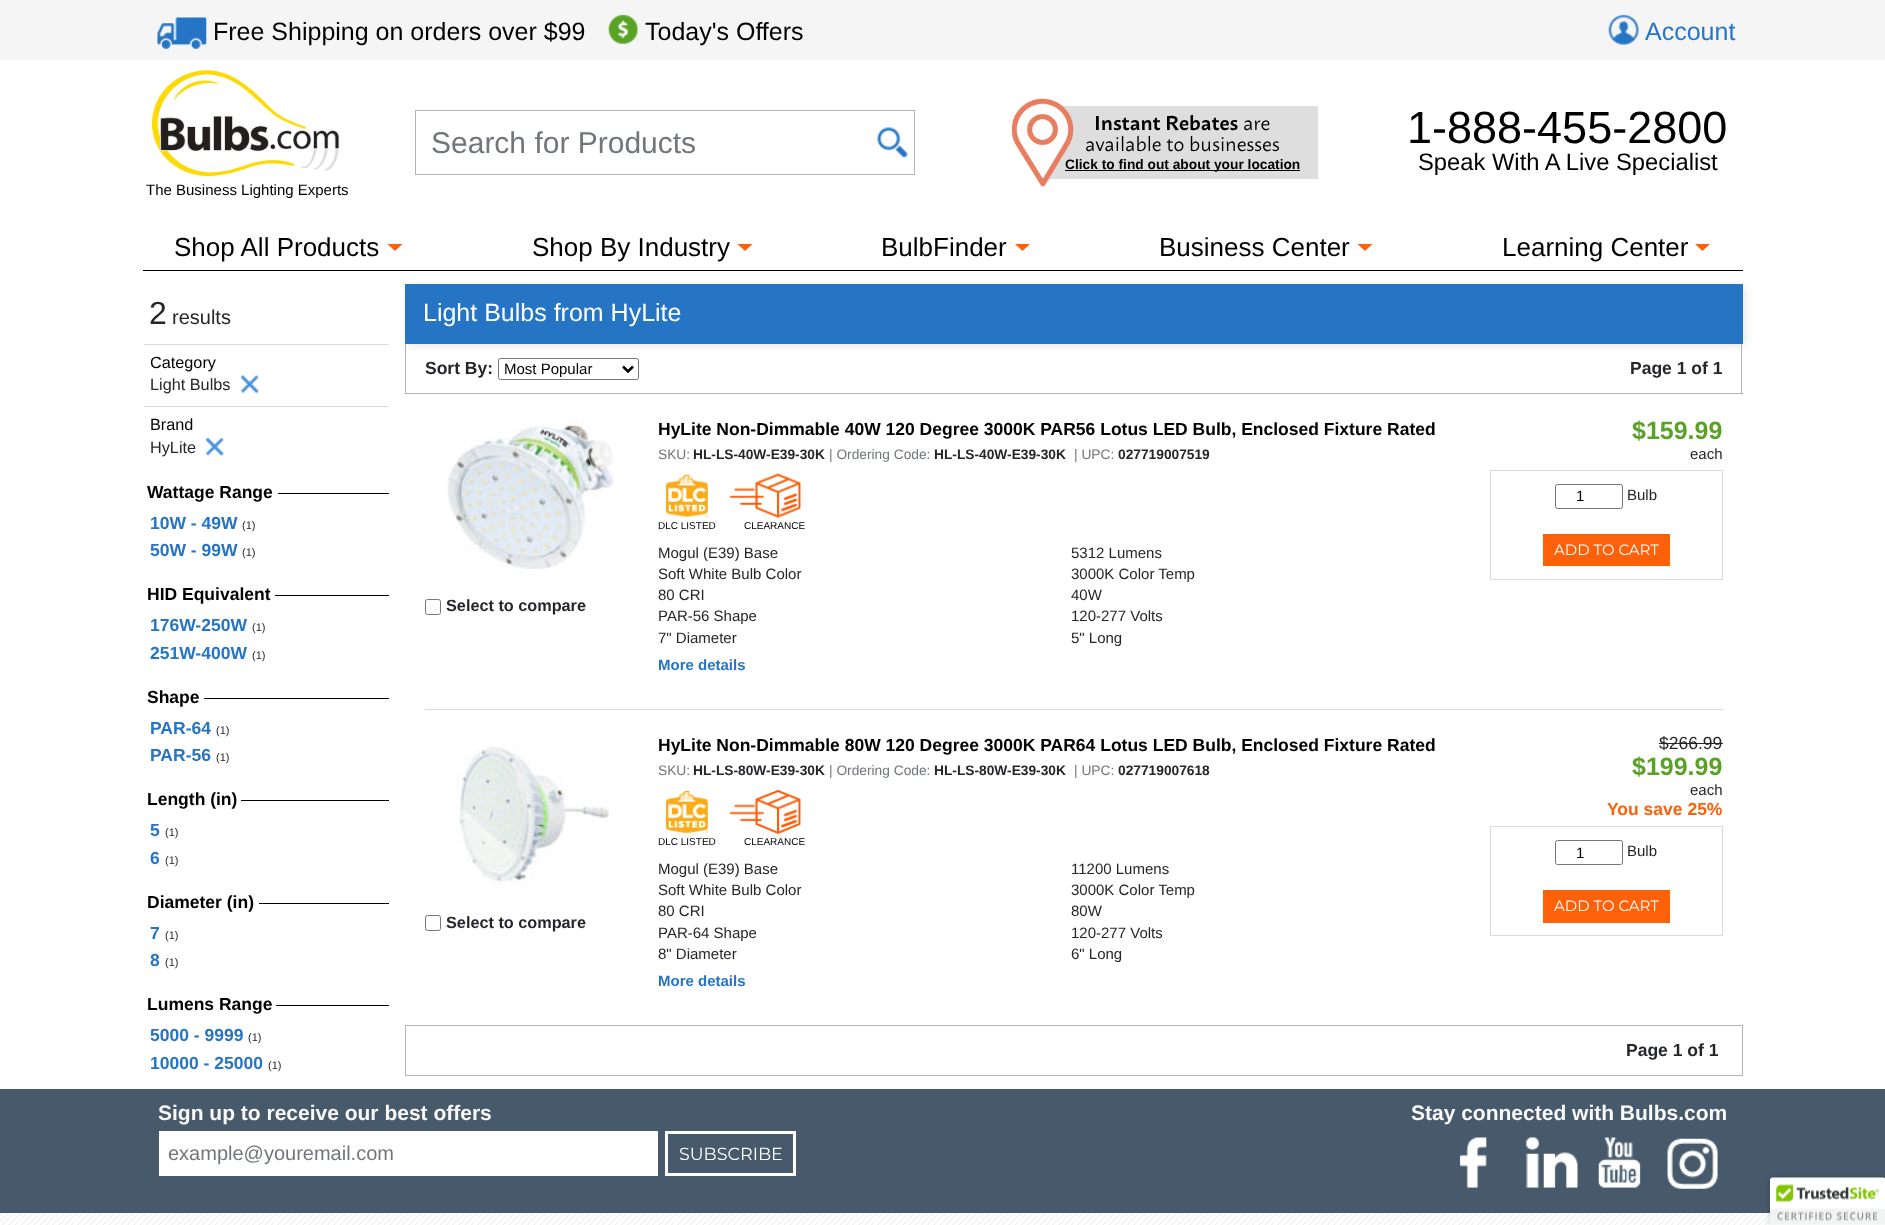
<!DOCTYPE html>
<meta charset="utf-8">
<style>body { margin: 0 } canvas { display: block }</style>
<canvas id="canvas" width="1885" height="1225"></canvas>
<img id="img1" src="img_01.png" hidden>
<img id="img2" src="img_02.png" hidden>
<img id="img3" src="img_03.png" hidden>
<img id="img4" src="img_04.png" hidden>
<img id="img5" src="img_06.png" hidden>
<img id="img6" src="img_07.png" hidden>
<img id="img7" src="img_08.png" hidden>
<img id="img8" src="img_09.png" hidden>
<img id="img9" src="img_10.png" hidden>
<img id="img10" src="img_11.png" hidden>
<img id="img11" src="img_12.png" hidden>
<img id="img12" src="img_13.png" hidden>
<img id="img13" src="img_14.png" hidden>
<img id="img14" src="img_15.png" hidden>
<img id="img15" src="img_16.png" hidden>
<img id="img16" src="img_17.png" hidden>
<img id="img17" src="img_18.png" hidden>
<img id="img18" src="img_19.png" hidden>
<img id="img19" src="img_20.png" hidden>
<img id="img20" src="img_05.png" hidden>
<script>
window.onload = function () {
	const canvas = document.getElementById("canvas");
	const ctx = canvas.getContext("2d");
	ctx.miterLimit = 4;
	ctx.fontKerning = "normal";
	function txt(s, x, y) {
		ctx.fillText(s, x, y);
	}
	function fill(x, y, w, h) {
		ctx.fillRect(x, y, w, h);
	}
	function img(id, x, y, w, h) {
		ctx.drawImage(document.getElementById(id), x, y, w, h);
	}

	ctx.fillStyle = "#FFFFFF";
	fill(0, 0, 1885, 1225);
	ctx.fillStyle = "#F5F5F5";
	fill(0, 0, 1885, 60);
	img("img1", 157, 17, 50, 32);
	img("img2", 608, 14, 30, 30);
	img("img3", 1608, 14, 31, 31);
	ctx.strokeStyle = "#B2B2B2";
	ctx.strokeRect(415.5, 110.5, 499, 64);
	img("img4", 877, 127, 31, 31);
	ctx.fillStyle = "#DEDEDE";
	fill(1048, 106, 270, 73);
	ctx.fillStyle = "#000000";
	fill(1065, 170, 235, 1);
	img("img5", 152, 70, 188, 106);
	fill(143, 270, 1600, 1);
	ctx.fillStyle = "#FF600A";
	ctx.beginPath();
	ctx.moveTo(387.5, 244);
	ctx.lineTo(402.5, 244);
	ctx.lineTo(395, 251);
	ctx.closePath();
	ctx.fill();
	ctx.beginPath();
	ctx.moveTo(737.5, 244);
	ctx.lineTo(752.5, 244);
	ctx.lineTo(745, 251);
	ctx.closePath();
	ctx.fill();
	ctx.beginPath();
	ctx.moveTo(1015, 244);
	ctx.lineTo(1030, 244);
	ctx.lineTo(1022.5, 251);
	ctx.closePath();
	ctx.fill();
	ctx.beginPath();
	ctx.moveTo(1357.5, 244);
	ctx.lineTo(1372.5, 244);
	ctx.lineTo(1365, 251);
	ctx.closePath();
	ctx.fill();
	ctx.beginPath();
	ctx.moveTo(1695, 244);
	ctx.lineTo(1710, 244);
	ctx.lineTo(1702.5, 251);
	ctx.closePath();
	ctx.fill();
	ctx.fillStyle = "#DBDBDB";
	fill(144, 344, 245, 1);
	img("img6", 240, 375, 19, 19);
	fill(144, 406, 245, 1);
	img("img7", 205, 437, 19, 20);
	ctx.fillStyle = "#000000";
	fill(278, 493, 111, 1);
	fill(275, 595, 114, 1);
	fill(204, 698, 185, 1);
	fill(241, 800, 148, 1);
	fill(259, 903, 130, 1);
	fill(276, 1005, 113, 1);
	ctx.fillStyle = "rgba(0, 0, 0, 0.1)";
	ctx.filter = "blur(4px)";
	ctx.beginPath();
	ctx.rect(408, 286, 1337, 60);
	ctx.fill();
	ctx.filter = "none";
	ctx.fillStyle = "#2675C5";
	fill(405, 284, 1338, 60);
	ctx.fillStyle = "#B2B2B2";
	fill(1741, 344, 1, 50);
	fill(405, 393, 1338, 1);
	fill(405, 344, 1, 50);
	ctx.beginPath();
	ctx.roundRect(498.5, 358.5, 140, 21, 2);
	ctx.strokeStyle = "#767676";
	ctx.stroke();
	ctx.beginPath();
	ctx.moveTo(623, 366.5);
	ctx.lineTo(628, 371.5);
	ctx.lineTo(633, 366.5);
	ctx.strokeStyle = "#000000";
	ctx.lineWidth = 2.5;
	ctx.stroke();
	ctx.fillStyle = "#DBDBDB";
	fill(425, 709, 1298, 1);
	img("img8", 447, 419, 168, 150);
	ctx.beginPath();
	ctx.roundRect(425.5, 599.5, 15, 15, 2);
	ctx.strokeStyle = "#767676";
	ctx.lineWidth = 1;
	ctx.stroke();
	img("img9", 666, 474, 42, 43);
	img("img10", 730, 473, 71, 45);
	ctx.strokeStyle = "#DBDBDB";
	ctx.strokeRect(1490.5, 470.5, 232, 109);
	ctx.beginPath();
	ctx.roundRect(1555.5, 484.5, 67, 24, 2);
	ctx.strokeStyle = "#767676";
	ctx.stroke();
	ctx.fillStyle = "#FF600A";
	fill(1543, 534, 127, 32);
	img("img11", 455, 746, 155, 139);
	ctx.beginPath();
	ctx.roundRect(425.5, 915.5, 15, 15, 2);
	ctx.stroke();
	img("img12", 666, 791, 42, 42);
	img("img13", 730, 790, 71, 44);
	ctx.fillStyle = "#25262A";
	fill(1659, 743, 64, 1);
	ctx.strokeStyle = "#DBDBDB";
	ctx.strokeRect(1490.5, 826.5, 232, 109);
	ctx.beginPath();
	ctx.roundRect(1555.5, 840.5, 67, 24, 2);
	ctx.strokeStyle = "#767676";
	ctx.stroke();
	ctx.fillStyle = "#FF600A";
	fill(1543, 890, 127, 33);
	ctx.strokeStyle = "#B2B2B2";
	ctx.strokeRect(405.5, 1025.5, 1337, 50);
	img("img14", 0, 1213, 1770, 12);
	ctx.fillStyle = "#475A6B";
	fill(0, 1089, 1885, 124);
	ctx.fillStyle = "#FFFFFF";
	fill(159, 1131, 499, 45);
	ctx.strokeStyle = "#FFFFFF";
	ctx.lineWidth = 3;
	ctx.strokeRect(666.5, 1132.5, 128, 42);
	img("img15", 1459, 1137, 28, 51);
	img("img16", 1526, 1137, 52, 51);
	img("img17", 1598, 1137, 43, 51);
	img("img18", 1667, 1138, 51, 51);
	ctx.fillStyle = "rgba(0, 0, 0, 0.2)";
	ctx.filter = "blur(3px)";
	ctx.beginPath();
	ctx.roundRect(1770, 1178, 115, 47, 2.5);
	ctx.fill();
	ctx.filter = "none";
	ctx.fillStyle = "#FFFFFF";
	ctx.beginPath();
	ctx.roundRect(1770, 1178, 115, 47, [2.5, 0, 0, 0]);
	ctx.fill();
	img("img19", 1770, 1177, 115, 48);
	ctx.font = "25px Liberation Sans";
	ctx.fillStyle = "#000000";
	txt("Free Shipping on orders over $99", 213, 40);
	txt("Today's Offers", 645, 40);
	ctx.fillStyle = "#2675C5";
	txt("Account", 1645, 40);
	ctx.font = "30px Liberation Sans";
	ctx.fillStyle = "#727579";
	txt("Search for Products", 431, 153);
	ctx.font = "600 20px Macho";
	ctx.fillStyle = "#000000";
	txt("Instant Rebates", 1094, 130);
	ctx.font = "20px Macho";
	txt("are", 1243, 130);
	txt("available to businesses", 1085, 151);
	ctx.font = "bold 13.75px Liberation Sans";
	txt("Click to find out about your location", 1065, 169);
	img("img20", 1011, 98, 63, 89);
	ctx.font = "45px Liberation Sans";
	txt("1-888-455-2800", 1407, 143);
	ctx.font = "23.75px Liberation Sans";
	txt("Speak With A Live Specialist", 1418, 170);
	ctx.font = "15px Liberation Sans";
	txt("The Business Lighting Experts", 146, 195);
	ctx.font = "26px Liberation Sans";
	txt("Shop All Products", 174, 256);
	txt("Shop By Industry", 532, 256);
	txt("BulbFinder", 881, 256);
	txt("Business Center", 1159, 256);
	txt("Learning Center", 1502, 256);
	ctx.font = "32px Liberation Sans";
	ctx.fillStyle = "#25262A";
	txt("2", 149, 324);
	ctx.font = "20px Liberation Sans";
	txt("results", 172, 324);
	ctx.font = "16.25px Liberation Sans";
	ctx.fillStyle = "#000000";
	txt("Category", 150, 368);
	ctx.fillStyle = "#25262A";
	txt("Light Bulbs", 150, 390);
	ctx.fillStyle = "#000000";
	txt("Brand", 150, 430);
	ctx.fillStyle = "#25262A";
	txt("HyLite", 150, 453);
	ctx.font = "bold 17.5px Liberation Sans";
	ctx.fillStyle = "#000000";
	txt("Wattage Range", 147, 498);
	ctx.fillStyle = "#2675C5";
	txt("10W - 49W", 150, 529);
	ctx.font = "11px Liberation Sans";
	ctx.fillStyle = "#25262A";
	txt("(1)", 242, 529);
	ctx.font = "bold 17.5px Liberation Sans";
	ctx.fillStyle = "#2675C5";
	txt("50W - 99W", 150, 556);
	ctx.font = "11px Liberation Sans";
	ctx.fillStyle = "#25262A";
	txt("(1)", 242, 556);
	ctx.font = "bold 17.5px Liberation Sans";
	ctx.fillStyle = "#000000";
	txt("HID Equivalent", 147, 600);
	ctx.fillStyle = "#2675C5";
	txt("176W-250W", 150, 631);
	ctx.font = "11px Liberation Sans";
	ctx.fillStyle = "#25262A";
	txt("(1)", 252, 631);
	ctx.font = "bold 17.5px Liberation Sans";
	ctx.fillStyle = "#2675C5";
	txt("251W-400W", 150, 659);
	ctx.font = "11px Liberation Sans";
	ctx.fillStyle = "#25262A";
	txt("(1)", 252, 659);
	ctx.font = "bold 17.5px Liberation Sans";
	ctx.fillStyle = "#000000";
	txt("Shape", 147, 703);
	ctx.fillStyle = "#2675C5";
	txt("PAR-64", 150, 734);
	ctx.font = "11px Liberation Sans";
	ctx.fillStyle = "#25262A";
	txt("(1)", 216, 734);
	ctx.font = "bold 17.5px Liberation Sans";
	ctx.fillStyle = "#2675C5";
	txt("PAR-56", 150, 761);
	ctx.font = "11px Liberation Sans";
	ctx.fillStyle = "#25262A";
	txt("(1)", 216, 761);
	ctx.font = "bold 17.5px Liberation Sans";
	ctx.fillStyle = "#000000";
	txt("Length (in)", 147, 805);
	ctx.fillStyle = "#2675C5";
	txt("5", 150, 836);
	ctx.font = "11px Liberation Sans";
	ctx.fillStyle = "#25262A";
	txt("(1)", 165, 836);
	ctx.font = "bold 17.5px Liberation Sans";
	ctx.fillStyle = "#2675C5";
	txt("6", 150, 864);
	ctx.font = "11px Liberation Sans";
	ctx.fillStyle = "#25262A";
	txt("(1)", 165, 864);
	ctx.font = "bold 17.5px Liberation Sans";
	ctx.fillStyle = "#000000";
	txt("Diameter (in)", 147, 908);
	ctx.fillStyle = "#2675C5";
	txt("7", 150, 939);
	ctx.font = "11px Liberation Sans";
	ctx.fillStyle = "#25262A";
	txt("(1)", 165, 939);
	ctx.font = "bold 17.5px Liberation Sans";
	ctx.fillStyle = "#2675C5";
	txt("8", 150, 966);
	ctx.font = "11px Liberation Sans";
	ctx.fillStyle = "#25262A";
	txt("(1)", 165, 966);
	ctx.font = "bold 17.5px Liberation Sans";
	ctx.fillStyle = "#000000";
	txt("Lumens Range", 147, 1010);
	ctx.fillStyle = "#2675C5";
	txt("5000 - 9999", 150, 1041);
	ctx.font = "11px Liberation Sans";
	ctx.fillStyle = "#25262A";
	txt("(1)", 248, 1041);
	ctx.font = "bold 17.5px Liberation Sans";
	ctx.fillStyle = "#2675C5";
	txt("10000 - 25000", 150, 1069);
	ctx.font = "11px Liberation Sans";
	ctx.fillStyle = "#25262A";
	txt("(1)", 268, 1069);
	ctx.font = "25px Liberation Sans";
	ctx.fillStyle = "#FFFFFF";
	txt("Light Bulbs from HyLite", 423, 321);
	ctx.font = "bold 17.5px Liberation Sans";
	ctx.fillStyle = "#25262A";
	txt("Sort By:", 425, 374);
	ctx.font = "15px Liberation Sans";
	ctx.fillStyle = "#000000";
	txt("Most Popular", 504, 374);
	ctx.font = "bold 17.5px Liberation Sans";
	ctx.fillStyle = "#25262A";
	txt("Page 1 of 1", 1630, 374);
	ctx.font = "bold 16.25px Liberation Sans";
	txt("Select to compare", 446, 611);
	ctx.font = "bold 17.5px Liberation Sans";
	ctx.fillStyle = "#000000";
	txt("HyLite Non-Dimmable 40W 120 Degree 3000K PAR56 Lotus LED Bulb, Enclosed Fixture Rated", 658, 435);
	ctx.font = "13.75px Liberation Sans";
	ctx.fillStyle = "#727579";
	txt("SKU:", 658, 459);
	ctx.font = "bold 13.75px Liberation Sans";
	ctx.fillStyle = "#25262A";
	txt("HL-LS-40W-E39-30K", 693, 459);
	ctx.font = "13.75px Liberation Sans";
	ctx.fillStyle = "#727579";
	txt("| Ordering Code:", 829, 459);
	ctx.font = "bold 13.75px Liberation Sans";
	ctx.fillStyle = "#25262A";
	txt("HL-LS-40W-E39-30K", 934, 459);
	ctx.font = "13.75px Liberation Sans";
	ctx.fillStyle = "#727579";
	txt("| UPC:", 1074, 459);
	ctx.font = "bold 13.75px Liberation Sans";
	ctx.fillStyle = "#25262A";
	txt("027719007519", 1118, 459);
	ctx.font = "10px Liberation Sans";
	ctx.fillStyle = "#000000";
	txt("DLC LISTED", 658, 529);
	txt("CLEARANCE", 744, 529);
	ctx.font = "15px Liberation Sans";
	ctx.fillStyle = "#25262A";
	txt("Mogul (E39) Base", 658, 558);
	txt("5312 Lumens", 1071, 558);
	txt("Soft White Bulb Color", 658, 579);
	txt("3000K Color Temp", 1071, 579);
	txt("80 CRI", 658, 600);
	txt("40W", 1071, 600);
	txt("PAR-56 Shape", 658, 621);
	txt("120-277 Volts", 1071, 621);
	txt("7\" Diameter", 658, 643);
	txt("5\" Long", 1071, 643);
	ctx.font = "bold 15px Liberation Sans";
	ctx.fillStyle = "#2675C5";
	txt("More details", 658, 670);
	ctx.font = "bold 25px Liberation Sans";
	ctx.fillStyle = "#59A324";
	txt("$159.99", 1632, 439);
	ctx.font = "15px Liberation Sans";
	ctx.fillStyle = "#25262A";
	txt("each", 1690, 459);
	ctx.fillStyle = "#000000";
	txt("1", 1576, 501);
	ctx.fillStyle = "#25262A";
	txt("Bulb", 1627, 500);
	ctx.font = "100 15px Montserrat";
	ctx.fillStyle = "#FFFFFF";
	txt("ADD TO CART", 1554, 555);
	ctx.font = "bold 16.25px Liberation Sans";
	ctx.fillStyle = "#25262A";
	txt("Select to compare", 446, 928);
	ctx.font = "bold 17.5px Liberation Sans";
	ctx.fillStyle = "#000000";
	txt("HyLite Non-Dimmable 80W 120 Degree 3000K PAR64 Lotus LED Bulb, Enclosed Fixture Rated", 658, 751);
	ctx.font = "13.75px Liberation Sans";
	ctx.fillStyle = "#727579";
	txt("SKU:", 658, 775);
	ctx.font = "bold 13.75px Liberation Sans";
	ctx.fillStyle = "#25262A";
	txt("HL-LS-80W-E39-30K", 693, 775);
	ctx.font = "13.75px Liberation Sans";
	ctx.fillStyle = "#727579";
	txt("| Ordering Code:", 829, 775);
	ctx.font = "bold 13.75px Liberation Sans";
	ctx.fillStyle = "#25262A";
	txt("HL-LS-80W-E39-30K", 934, 775);
	ctx.font = "13.75px Liberation Sans";
	ctx.fillStyle = "#727579";
	txt("| UPC:", 1074, 775);
	ctx.font = "bold 13.75px Liberation Sans";
	ctx.fillStyle = "#25262A";
	txt("027719007618", 1118, 775);
	ctx.font = "10px Liberation Sans";
	ctx.fillStyle = "#000000";
	txt("DLC LISTED", 658, 845);
	txt("CLEARANCE", 744, 845);
	ctx.font = "15px Liberation Sans";
	ctx.fillStyle = "#25262A";
	txt("Mogul (E39) Base", 658, 874);
	txt("11200 Lumens", 1071, 874);
	txt("Soft White Bulb Color", 658, 895);
	txt("3000K Color Temp", 1071, 895);
	txt("80 CRI", 658, 916);
	txt("80W", 1071, 916);
	txt("PAR-64 Shape", 658, 938);
	txt("120-277 Volts", 1071, 938);
	txt("8\" Diameter", 658, 959);
	txt("6\" Long", 1071, 959);
	ctx.font = "bold 15px Liberation Sans";
	ctx.fillStyle = "#2675C5";
	txt("More details", 658, 986);
	ctx.font = "17.5px Liberation Sans";
	ctx.fillStyle = "#25262A";
	txt("$266.99", 1659, 749);
	ctx.font = "bold 25px Liberation Sans";
	ctx.fillStyle = "#59A324";
	txt("$199.99", 1632, 775);
	ctx.font = "15px Liberation Sans";
	ctx.fillStyle = "#25262A";
	txt("each", 1690, 795);
	ctx.font = "bold 17.5px Liberation Sans";
	ctx.fillStyle = "#FF600A";
	txt("You save 25%", 1607, 815);
	ctx.font = "15px Liberation Sans";
	ctx.fillStyle = "#000000";
	txt("1", 1576, 858);
	ctx.fillStyle = "#25262A";
	txt("Bulb", 1627, 856);
	ctx.font = "100 15px Montserrat";
	ctx.fillStyle = "#FFFFFF";
	txt("ADD TO CART", 1554, 911);
	ctx.font = "bold 17.5px Liberation Sans";
	ctx.fillStyle = "#25262A";
	txt("Page 1 of 1", 1626, 1056);
	ctx.font = "bold 21px Liberation Sans";
	ctx.fillStyle = "#F9F9F9";
	txt("Sign up to receive our best offers", 158, 1120);
	ctx.font = "20px Liberation Sans";
	ctx.fillStyle = "#727579";
	txt("example@youremail.com", 168, 1160);
	ctx.font = "100 17.5px Montserrat";
	ctx.fillStyle = "#FFFFFF";
	txt("SUBSCRIBE", 679, 1160);
	ctx.font = "bold 21px Liberation Sans";
	ctx.fillStyle = "#F9F9F9";
	txt("Stay connected with Bulbs.com", 1411, 1120);
};
</script>
